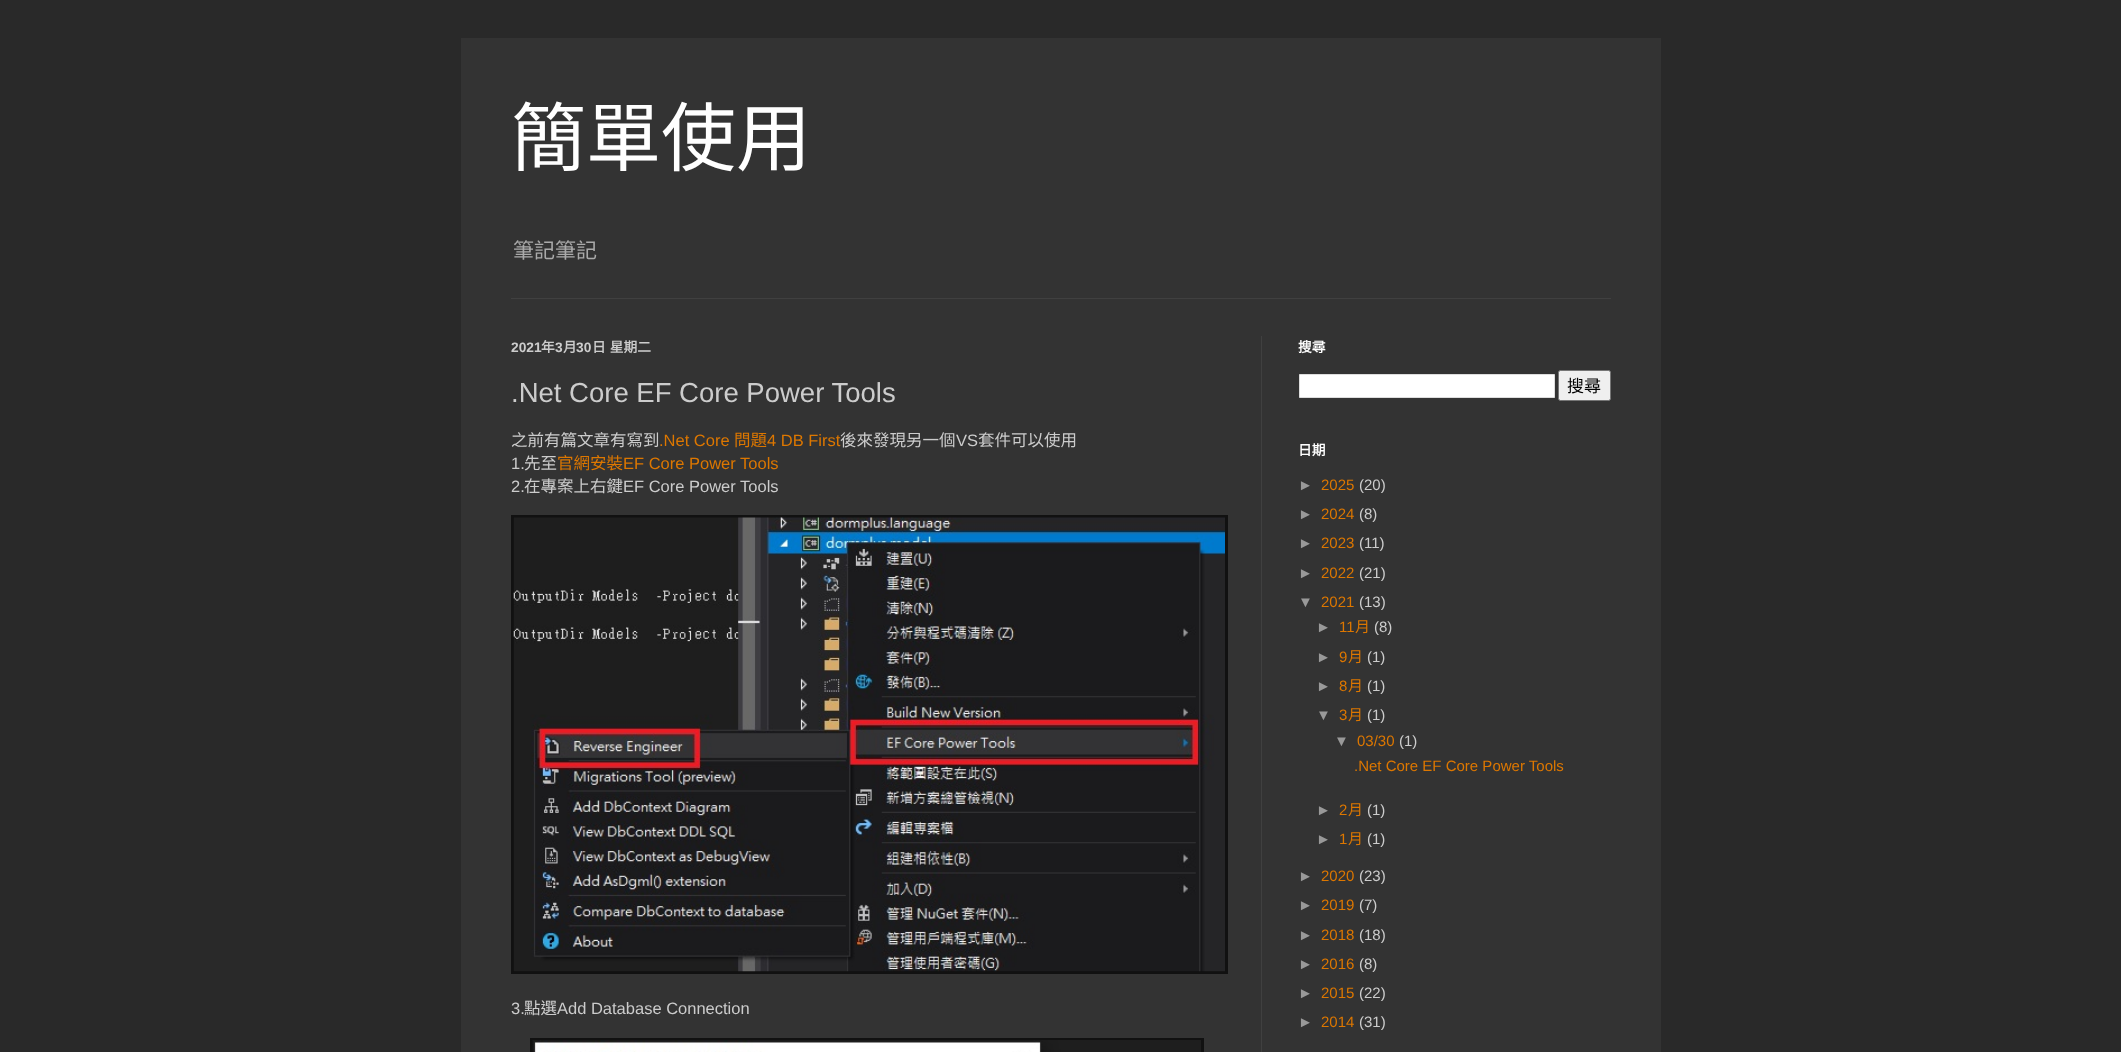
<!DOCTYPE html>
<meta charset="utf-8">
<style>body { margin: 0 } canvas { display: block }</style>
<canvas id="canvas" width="2121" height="1052"></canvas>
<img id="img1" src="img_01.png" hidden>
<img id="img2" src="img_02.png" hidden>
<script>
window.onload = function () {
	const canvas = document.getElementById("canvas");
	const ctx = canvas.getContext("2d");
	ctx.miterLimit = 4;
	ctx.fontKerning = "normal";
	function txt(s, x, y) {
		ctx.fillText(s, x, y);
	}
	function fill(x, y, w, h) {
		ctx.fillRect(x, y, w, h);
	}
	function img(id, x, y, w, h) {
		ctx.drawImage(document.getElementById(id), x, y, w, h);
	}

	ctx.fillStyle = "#292929";
	fill(0, 0, 2121, 1052);
	ctx.fillStyle = "#333333";
	fill(461, 38, 1200, 1014);
	ctx.fillStyle = "#404040";
	fill(511, 298, 1100, 1);
	fill(1261, 336, 1, 716);
	ctx.fillStyle = "#111111";
	fill(511, 515, 717, 459);
	img("img1", 513, 517, 712, 455);
	fill(530, 1038, 674, 14);
	img("img2", 532, 1040, 669, 12);
	ctx.fillStyle = "#FFFFFF";
	ctx.beginPath();
	ctx.rect(1299.5, 374.5, 255, 23);
	ctx.fill();
	ctx.strokeStyle = "#DDDDDD";
	ctx.stroke();
	ctx.fillStyle = "#EFEFEF";
	ctx.beginPath();
	ctx.roundRect(1558.5, 370.5, 52, 30, 2);
	ctx.fill();
	ctx.strokeStyle = "#767676";
	ctx.stroke();
	ctx.font = "75px Noto Sans CJK TC";
	ctx.fillStyle = "#FFFFFF";
	txt("簡單使用", 511, 165);
	ctx.font = "21px Noto Sans CJK TC";
	ctx.fillStyle = "#AAAAAA";
	txt("筆記筆記", 513, 258);
	ctx.font = "bold 13.75px Liberation Sans";
	ctx.fillStyle = "#CCCCCC";
	txt("2021", 511, 352);
	ctx.font = "bold 13.75px Noto Sans CJK TC";
	txt("年", 541, 352);
	ctx.font = "bold 13.75px Liberation Sans";
	txt("3", 555, 352);
	ctx.font = "bold 13.75px Noto Sans CJK TC";
	txt("月", 563, 352);
	ctx.font = "bold 13.75px Liberation Sans";
	txt("30", 576, 352);
	ctx.wordSpacing = "1px";
	ctx.font = "bold 13.75px Noto Sans CJK TC";
	txt("日 星期二", 592, 352);
	ctx.wordSpacing = "0px";
	ctx.font = "27.5px Liberation Sans";
	txt(".Net Core EF Core Power Tools", 511, 402);
	ctx.font = "16.5px Noto Sans CJK TC";
	txt("之前有篇文章有寫到", 511, 446);
	ctx.font = "16.5px Liberation Sans";
	ctx.fillStyle = "#DD7700";
	txt(".Net Core", 659, 446);
	ctx.font = "16.5px Noto Sans CJK TC";
	txt("問題", 734, 446);
	ctx.font = "16.5px Liberation Sans";
	txt("4 DB First", 767, 446);
	ctx.font = "16.5px Noto Sans CJK TC";
	ctx.fillStyle = "#CCCCCC";
	txt("後來發現另一個", 840, 446);
	ctx.font = "16.5px Liberation Sans";
	txt("VS", 956, 446);
	ctx.font = "16.5px Noto Sans CJK TC";
	txt("套件可以使用", 978, 446);
	ctx.font = "16.5px Liberation Sans";
	txt("1.", 511, 469);
	ctx.font = "16.5px Noto Sans CJK TC";
	txt("先至", 524, 469);
	ctx.fillStyle = "#DD7700";
	txt("官網安裝", 557, 469);
	ctx.font = "16.5px Liberation Sans";
	txt("EF Core Power Tools", 623, 469);
	ctx.fillStyle = "#CCCCCC";
	txt("2.", 511, 492);
	ctx.font = "16.5px Noto Sans CJK TC";
	txt("在專案上右鍵", 524, 492);
	ctx.font = "16.5px Liberation Sans";
	txt("EF Core Power Tools", 623, 492);
	txt("3.", 511, 1014);
	ctx.font = "16.5px Noto Sans CJK TC";
	txt("點選", 524, 1014);
	ctx.font = "16.5px Liberation Sans";
	txt("Add Database Connection", 557, 1014);
	ctx.font = "bold 13.75px Noto Sans CJK TC";
	ctx.fillStyle = "#FFFFFF";
	txt("搜尋", 1298, 352);
	ctx.font = "17px Noto Sans CJK TC";
	ctx.fillStyle = "#000000";
	txt("搜尋", 1567, 392);
	ctx.font = "bold 13.75px Noto Sans CJK TC";
	ctx.fillStyle = "#FFFFFF";
	txt("日期", 1298, 455);
	ctx.font = "15px Liberation Sans";
	ctx.fillStyle = "#999999";
	txt("►", 1298, 490);
	ctx.fillStyle = "#DD7700";
	txt("2025", 1321, 490);
	ctx.fillStyle = "#CCCCCC";
	txt("(20)", 1359, 490);
	ctx.fillStyle = "#999999";
	txt("►", 1298, 519);
	ctx.fillStyle = "#DD7700";
	txt("2024", 1321, 519);
	ctx.fillStyle = "#CCCCCC";
	txt("(8)", 1359, 519);
	ctx.fillStyle = "#999999";
	txt("►", 1298, 548);
	ctx.fillStyle = "#DD7700";
	txt("2023", 1321, 548);
	ctx.fillStyle = "#CCCCCC";
	txt("(11)", 1359, 548);
	ctx.fillStyle = "#999999";
	txt("►", 1298, 578);
	ctx.fillStyle = "#DD7700";
	txt("2022", 1321, 578);
	ctx.fillStyle = "#CCCCCC";
	txt("(21)", 1359, 578);
	ctx.fillStyle = "#999999";
	txt("▼", 1298, 607);
	ctx.fillStyle = "#DD7700";
	txt("2021", 1321, 607);
	ctx.fillStyle = "#CCCCCC";
	txt("(13)", 1359, 607);
	ctx.fillStyle = "#999999";
	txt("►", 1316, 632);
	ctx.fillStyle = "#DD7700";
	txt("11", 1339, 632);
	ctx.font = "15px Noto Sans CJK TC";
	txt("月", 1355, 632);
	ctx.font = "15px Liberation Sans";
	ctx.fillStyle = "#CCCCCC";
	txt("(8)", 1374, 632);
	ctx.fillStyle = "#999999";
	txt("►", 1316, 662);
	ctx.fillStyle = "#DD7700";
	txt("9", 1339, 662);
	ctx.font = "15px Noto Sans CJK TC";
	txt("月", 1348, 662);
	ctx.font = "15px Liberation Sans";
	ctx.fillStyle = "#CCCCCC";
	txt("(1)", 1367, 662);
	ctx.fillStyle = "#999999";
	txt("►", 1316, 691);
	ctx.fillStyle = "#DD7700";
	txt("8", 1339, 691);
	ctx.font = "15px Noto Sans CJK TC";
	txt("月", 1348, 691);
	ctx.font = "15px Liberation Sans";
	ctx.fillStyle = "#CCCCCC";
	txt("(1)", 1367, 691);
	ctx.fillStyle = "#999999";
	txt("▼", 1316, 720);
	ctx.fillStyle = "#DD7700";
	txt("3", 1339, 720);
	ctx.font = "15px Noto Sans CJK TC";
	txt("月", 1348, 720);
	ctx.font = "15px Liberation Sans";
	ctx.fillStyle = "#CCCCCC";
	txt("(1)", 1367, 720);
	ctx.fillStyle = "#999999";
	txt("▼", 1334, 746);
	ctx.fillStyle = "#DD7700";
	txt("03/30", 1357, 746);
	ctx.fillStyle = "#CCCCCC";
	txt("(1)", 1399, 746);
	ctx.fillStyle = "#DD7700";
	txt(".Net Core EF Core Power Tools", 1354, 771);
	ctx.fillStyle = "#999999";
	txt("►", 1316, 815);
	ctx.fillStyle = "#DD7700";
	txt("2", 1339, 815);
	ctx.font = "15px Noto Sans CJK TC";
	txt("月", 1348, 815);
	ctx.font = "15px Liberation Sans";
	ctx.fillStyle = "#CCCCCC";
	txt("(1)", 1367, 815);
	ctx.fillStyle = "#999999";
	txt("►", 1316, 844);
	ctx.fillStyle = "#DD7700";
	txt("1", 1339, 844);
	ctx.font = "15px Noto Sans CJK TC";
	txt("月", 1348, 844);
	ctx.font = "15px Liberation Sans";
	ctx.fillStyle = "#CCCCCC";
	txt("(1)", 1367, 844);
	ctx.fillStyle = "#999999";
	txt("►", 1298, 881);
	ctx.fillStyle = "#DD7700";
	txt("2020", 1321, 881);
	ctx.fillStyle = "#CCCCCC";
	txt("(23)", 1359, 881);
	ctx.fillStyle = "#999999";
	txt("►", 1298, 910);
	ctx.fillStyle = "#DD7700";
	txt("2019", 1321, 910);
	ctx.fillStyle = "#CCCCCC";
	txt("(7)", 1359, 910);
	ctx.fillStyle = "#999999";
	txt("►", 1298, 940);
	ctx.fillStyle = "#DD7700";
	txt("2018", 1321, 940);
	ctx.fillStyle = "#CCCCCC";
	txt("(18)", 1359, 940);
	ctx.fillStyle = "#999999";
	txt("►", 1298, 969);
	ctx.fillStyle = "#DD7700";
	txt("2016", 1321, 969);
	ctx.fillStyle = "#CCCCCC";
	txt("(8)", 1359, 969);
	ctx.fillStyle = "#999999";
	txt("►", 1298, 998);
	ctx.fillStyle = "#DD7700";
	txt("2015", 1321, 998);
	ctx.fillStyle = "#CCCCCC";
	txt("(22)", 1359, 998);
	ctx.fillStyle = "#999999";
	txt("►", 1298, 1027);
	ctx.fillStyle = "#DD7700";
	txt("2014", 1321, 1027);
	ctx.fillStyle = "#CCCCCC";
	txt("(31)", 1359, 1027);
};
</script>
